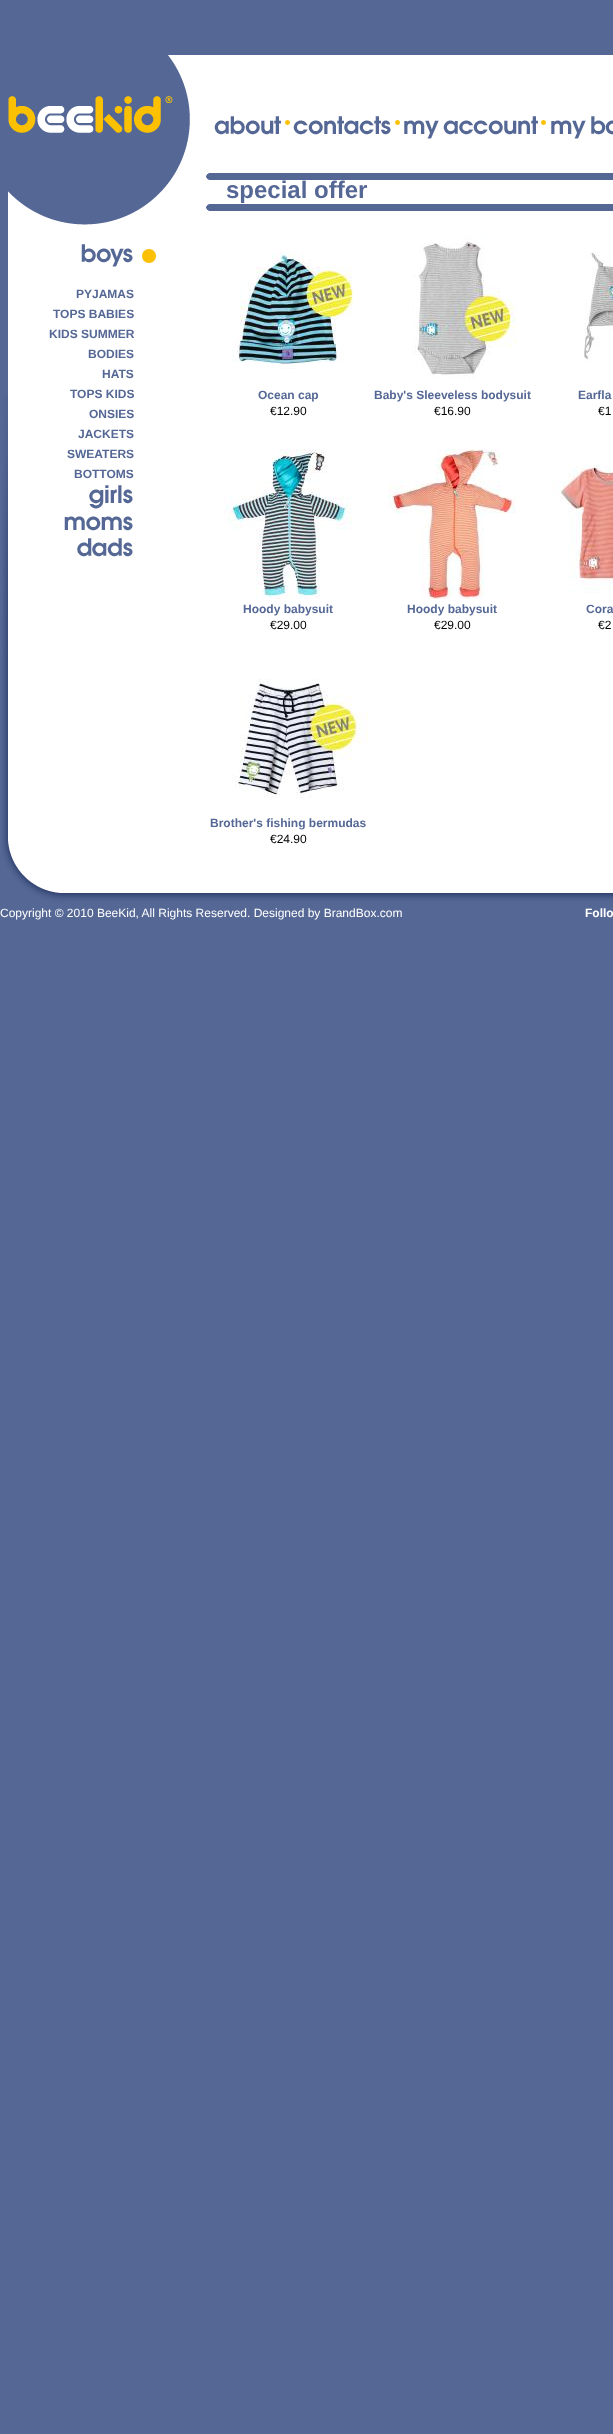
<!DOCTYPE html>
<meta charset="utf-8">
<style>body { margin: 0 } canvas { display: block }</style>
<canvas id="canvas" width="613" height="2434"></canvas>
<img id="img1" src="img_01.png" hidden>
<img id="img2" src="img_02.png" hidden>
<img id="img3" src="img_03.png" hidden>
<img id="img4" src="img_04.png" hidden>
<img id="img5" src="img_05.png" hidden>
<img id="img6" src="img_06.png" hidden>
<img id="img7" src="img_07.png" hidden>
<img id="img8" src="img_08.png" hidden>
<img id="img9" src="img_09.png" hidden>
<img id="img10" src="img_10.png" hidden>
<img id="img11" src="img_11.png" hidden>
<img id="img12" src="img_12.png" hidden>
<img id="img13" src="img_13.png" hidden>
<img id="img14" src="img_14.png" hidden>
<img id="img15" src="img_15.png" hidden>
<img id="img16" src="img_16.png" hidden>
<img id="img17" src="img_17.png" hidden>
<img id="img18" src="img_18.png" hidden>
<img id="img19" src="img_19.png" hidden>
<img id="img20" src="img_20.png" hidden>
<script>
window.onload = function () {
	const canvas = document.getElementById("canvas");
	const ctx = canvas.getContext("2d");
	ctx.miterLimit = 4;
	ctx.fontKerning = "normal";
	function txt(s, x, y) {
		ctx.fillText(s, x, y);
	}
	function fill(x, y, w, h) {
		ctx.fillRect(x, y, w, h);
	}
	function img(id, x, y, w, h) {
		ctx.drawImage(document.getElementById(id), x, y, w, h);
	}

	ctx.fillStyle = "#556895";
	fill(0, 0, 613, 2434);
	ctx.fillStyle = "#FFFFFF";
	fill(8, 225, 605, 170);
	img("img1", 2, 395, 611, 512);
	img("img2", 8, 52, 605, 173);
	img("img3", 8, 96, 165, 37);
	img("img4", 214, 116, 67, 19);
	img("img5", 285, 116, 106, 19);
	img("img6", 395, 116, 143, 23);
	img("img7", 541, 116, 72, 23);
	img("img8", 142, 249, 14, 14);
	img("img9", 81, 244, 52, 23);
	img("img10", 89, 485, 44, 24);
	img("img11", 64, 516, 69, 15);
	img("img12", 77, 538, 56, 19);
	img("img13", 206, 173, 407, 38);
	img("img14", 232, 251, 121, 118);
	img("img15", 412, 236, 105, 143);
	img("img16", 584, 251, 29, 112);
	img("img17", 224, 449, 128, 150);
	img("img18", 388, 449, 128, 150);
	img("img19", 552, 465, 61, 128);
	img("img20", 232, 679, 136, 120);
	ctx.font = "bold 12px Liberation Sans";
	ctx.fillStyle = "#556895";
	txt("PYJAMAS", 76, 298);
	txt("TOPS BABIES", 53, 318);
	txt("KIDS SUMMER", 49, 338);
	txt("BODIES", 88, 358);
	txt("HATS", 102, 378);
	txt("TOPS KIDS", 70, 398);
	txt("ONSIES", 89, 418);
	txt("JACKETS", 78, 438);
	txt("SWEATERS", 67, 458);
	txt("BOTTOMS", 74, 478);
	ctx.font = "bold 24px Liberation Sans";
	txt("special offer", 226, 198);
	ctx.font = "bold 12px Liberation Sans";
	txt("Ocean cap", 258, 399);
	ctx.font = "12px Liberation Sans";
	ctx.fillStyle = "#000000";
	txt("€12.90", 270, 415);
	ctx.font = "bold 12px Liberation Sans";
	ctx.fillStyle = "#556895";
	txt("Baby's Sleeveless bodysuit", 374, 399);
	ctx.font = "12px Liberation Sans";
	ctx.fillStyle = "#000000";
	txt("€16.90", 434, 415);
	ctx.font = "bold 12px Liberation Sans";
	ctx.fillStyle = "#556895";
	txt("Earfla", 578, 399);
	ctx.font = "12px Liberation Sans";
	ctx.fillStyle = "#000000";
	txt("€1", 598, 415);
	ctx.font = "bold 12px Liberation Sans";
	ctx.fillStyle = "#556895";
	txt("Hoody babysuit", 243, 613);
	ctx.font = "12px Liberation Sans";
	ctx.fillStyle = "#000000";
	txt("€29.00", 270, 629);
	ctx.font = "bold 12px Liberation Sans";
	ctx.fillStyle = "#556895";
	txt("Hoody babysuit", 407, 613);
	ctx.font = "12px Liberation Sans";
	ctx.fillStyle = "#000000";
	txt("€29.00", 434, 629);
	ctx.font = "bold 12px Liberation Sans";
	ctx.fillStyle = "#556895";
	txt("Cora", 586, 613);
	ctx.font = "12px Liberation Sans";
	ctx.fillStyle = "#000000";
	txt("€2", 598, 629);
	ctx.font = "bold 12px Liberation Sans";
	ctx.fillStyle = "#556895";
	txt("Brother's fishing bermudas", 210, 827);
	ctx.font = "12px Liberation Sans";
	ctx.fillStyle = "#000000";
	txt("€24.90", 270, 843);
	ctx.fillStyle = "#FFFFFF";
	txt("Copyright © 2010 BeeKid, All Rights Reserved. Designed by BrandBox.com", 0, 917);
	ctx.font = "bold 12px Liberation Sans";
	txt("Follo", 585, 917);
};
</script>
